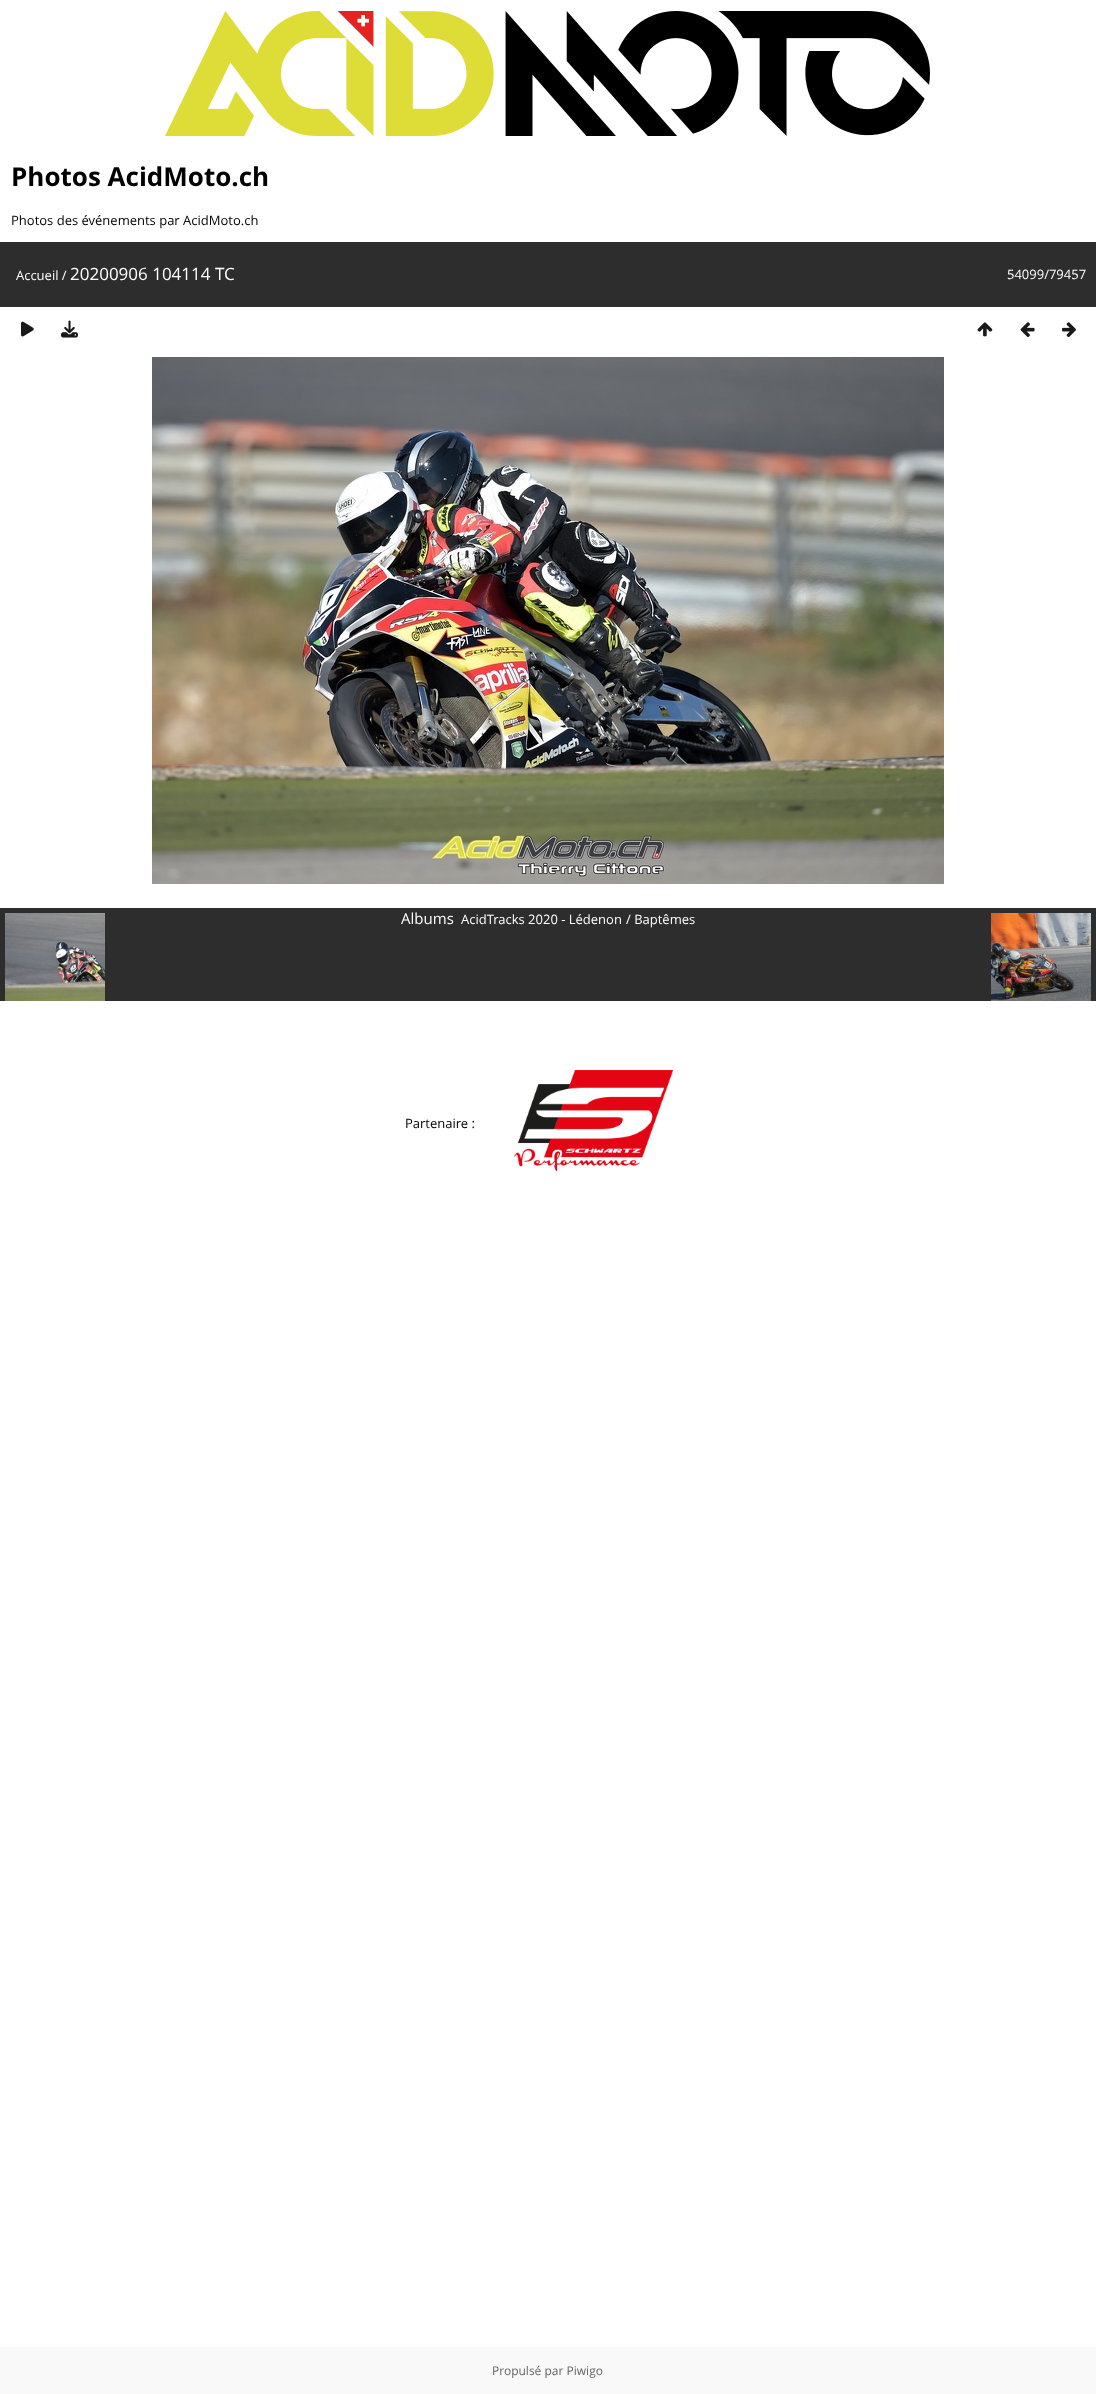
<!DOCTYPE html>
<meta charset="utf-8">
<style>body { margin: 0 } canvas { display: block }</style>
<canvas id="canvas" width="1096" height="2394"></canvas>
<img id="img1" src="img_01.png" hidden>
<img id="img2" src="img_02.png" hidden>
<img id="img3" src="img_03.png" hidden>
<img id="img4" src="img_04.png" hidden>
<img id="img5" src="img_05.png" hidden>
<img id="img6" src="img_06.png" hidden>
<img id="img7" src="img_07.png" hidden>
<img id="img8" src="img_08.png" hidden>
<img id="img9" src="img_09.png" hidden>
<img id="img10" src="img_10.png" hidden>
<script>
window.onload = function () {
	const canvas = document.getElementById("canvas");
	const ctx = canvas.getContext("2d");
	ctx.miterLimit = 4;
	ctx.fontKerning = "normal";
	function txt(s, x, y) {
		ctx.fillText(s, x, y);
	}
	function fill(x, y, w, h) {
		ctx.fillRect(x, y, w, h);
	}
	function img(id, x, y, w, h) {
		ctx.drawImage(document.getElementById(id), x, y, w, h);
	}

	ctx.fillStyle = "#FFFFFF";
	fill(0, 0, 1096, 2394);
	img("img1", 165, 11, 765, 125);
	ctx.fillStyle = "#2D2D2D";
	fill(0, 242, 1096, 65);
	img("img2", 21, 321, 13, 16);
	img("img3", 61, 320, 17, 18);
	img("img4", 977, 322, 16, 15);
	img("img5", 1020, 322, 15, 15);
	img("img6", 1062, 322, 14, 15);
	img("img7", 152, 357, 792, 527);
	fill(0, 908, 1096, 93);
	img("img8", 5, 913, 100, 88);
	img("img9", 991, 913, 100, 88);
	img("img10", 514, 1070, 159, 102);
	ctx.fillStyle = "#F9F9F9";
	fill(0, 2347, 1096, 47);
	ctx.font = "bold 26px Open Sans";
	ctx.fillStyle = "#000000";
	txt("Photos AcidMoto.ch", 11, 186);
	ctx.font = "13px Open Sans";
	txt("Photos des événements par AcidMoto.ch", 11, 225);
	ctx.fillStyle = "#FFFFFF";
	txt("Accueil /", 16, 280);
	ctx.font = "17px Open Sans";
	txt("20200906 104114 TC", 70, 280);
	ctx.font = "13px Open Sans";
	txt("54099/79457", 1007, 279);
	ctx.font = "15px Open Sans";
	txt("Albums", 401, 924);
	ctx.font = "13px Open Sans";
	txt("AcidTracks 2020 - Lédenon", 461, 924);
	txt("/ Baptêmes", 626, 924);
	ctx.fillStyle = "#000000";
	txt("Partenaire :", 405, 1128);
	ctx.font = "12px Open Sans";
	ctx.fillStyle = "#666666";
	txt("Propulsé par Piwigo", 492, 2375);
};
</script>
